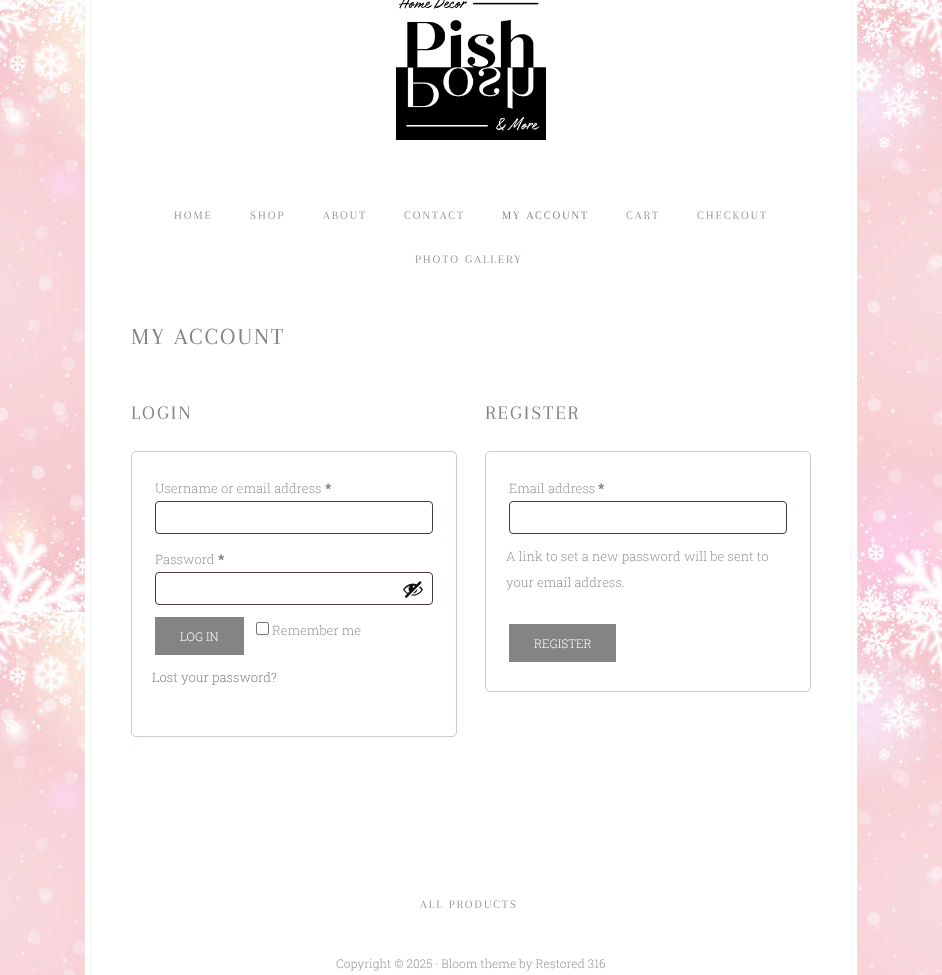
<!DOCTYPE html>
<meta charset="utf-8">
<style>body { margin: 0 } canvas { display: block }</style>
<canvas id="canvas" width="942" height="975"></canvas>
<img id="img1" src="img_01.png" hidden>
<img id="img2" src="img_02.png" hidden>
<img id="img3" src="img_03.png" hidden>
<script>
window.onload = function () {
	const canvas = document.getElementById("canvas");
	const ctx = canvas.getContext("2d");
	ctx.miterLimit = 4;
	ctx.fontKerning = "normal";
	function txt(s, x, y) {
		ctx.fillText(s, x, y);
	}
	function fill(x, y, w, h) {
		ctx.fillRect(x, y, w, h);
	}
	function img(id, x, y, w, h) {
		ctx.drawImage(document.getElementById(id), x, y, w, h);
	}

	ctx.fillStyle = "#FFFFFF";
	fill(0, 0, 942, 975);
	img("img1", 0, 0, 942, 975);
	ctx.fillStyle = "#EEEEEE";
	ctx.filter = "blur(1px)";
	ctx.beginPath();
	ctx.rect(85, -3, 772, 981);
	ctx.fill();
	ctx.filter = "none";
	ctx.fillStyle = "#FFFFFF";
	fill(85, 0, 772, 975);
	ctx.strokeStyle = "#F6F3F3";
	ctx.strokeRect(90.5, -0.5, 761, 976);
	img("img2", 396, 0, 150, 140);
	ctx.beginPath();
	ctx.roundRect(131.5, 451.5, 325, 285, 4.5);
	ctx.strokeStyle = "#CFC8D8";
	ctx.stroke();
	ctx.beginPath();
	ctx.roundRect(155.5, 501.5, 277, 32, 3.5);
	ctx.strokeStyle = "#4D3939";
	ctx.stroke();
	ctx.beginPath();
	ctx.roundRect(155.5, 572.5, 277, 32, 3.5);
	ctx.stroke();
	img("img3", 403, 581, 20, 17);
	ctx.beginPath();
	ctx.roundRect(256.5, 622.5, 12, 12, 1.5);
	ctx.strokeStyle = "#767676";
	ctx.stroke();
	ctx.fillStyle = "#848484";
	fill(155, 617, 89, 38);
	ctx.beginPath();
	ctx.roundRect(485.5, 451.5, 325, 240, 4.5);
	ctx.strokeStyle = "#CFC8D8";
	ctx.stroke();
	ctx.beginPath();
	ctx.roundRect(509.5, 501.5, 277, 32, 3.5);
	ctx.strokeStyle = "#4D3939";
	ctx.stroke();
	fill(509, 624, 107, 38);
	ctx.letterSpacing = "2px";
	ctx.font = "12px Arapey";
	ctx.fillStyle = "#999999";
	txt("HOME", 174, 219);
	txt("SHOP", 250, 219);
	txt("ABOUT", 323, 219);
	txt("CONTACT", 404, 219);
	ctx.fillStyle = "#848484";
	txt("MY ACCOUNT", 502, 219);
	ctx.fillStyle = "#999999";
	txt("CART", 626, 219);
	txt("CHECKOUT", 697, 219);
	txt("PHOTO GALLERY", 415, 263);
	ctx.font = "24px Arapey";
	ctx.fillStyle = "#848484";
	txt("MY ACCOUNT", 131, 344);
	ctx.font = "20px Arapey";
	txt("LOGIN", 131, 419);
	ctx.letterSpacing = "0px";
	ctx.font = "300 13px Roboto Slab";
	ctx.fillStyle = "#999999";
	txt("Username or email address", 155, 493);
	ctx.font = "bold 13px Roboto Slab";
	ctx.fillStyle = "#848484";
	txt("*", 325, 493);
	ctx.font = "300 13px Roboto Slab";
	ctx.fillStyle = "#999999";
	txt("Password", 155, 564);
	ctx.font = "bold 13px Roboto Slab";
	ctx.fillStyle = "#848484";
	txt("*", 218, 564);
	ctx.font = "300 13px Roboto Slab";
	ctx.fillStyle = "#999999";
	txt("Remember me", 272, 635);
	ctx.font = "300 12px Roboto Slab";
	ctx.fillStyle = "#FFFFFF";
	txt("LOG IN", 180, 641);
	ctx.font = "300 13px Roboto Slab";
	ctx.fillStyle = "#848484";
	txt("Lost your password?", 152, 682);
	ctx.letterSpacing = "2px";
	ctx.font = "20px Arapey";
	txt("REGISTER", 485, 419);
	ctx.letterSpacing = "0px";
	ctx.font = "300 13px Roboto Slab";
	ctx.fillStyle = "#999999";
	txt("Email address", 509, 493);
	ctx.font = "bold 13px Roboto Slab";
	ctx.fillStyle = "#848484";
	txt("*", 598, 493);
	ctx.font = "300 13px Roboto Slab";
	ctx.fillStyle = "#999999";
	txt("A link to set a new password will be sent to", 506, 561);
	txt("your email address.", 506, 587);
	ctx.font = "300 12px Roboto Slab";
	ctx.fillStyle = "#FFFFFF";
	txt("REGISTER", 534, 648);
	ctx.letterSpacing = "2px";
	ctx.font = "12px Arapey";
	ctx.fillStyle = "#999999";
	txt("ALL PRODUCTS", 420, 908);
	ctx.letterSpacing = "0px";
	ctx.font = "300 12px Roboto Slab";
	txt("Copyright © 2025 · Bloom theme by Restored 316", 336, 968);
};
</script>
